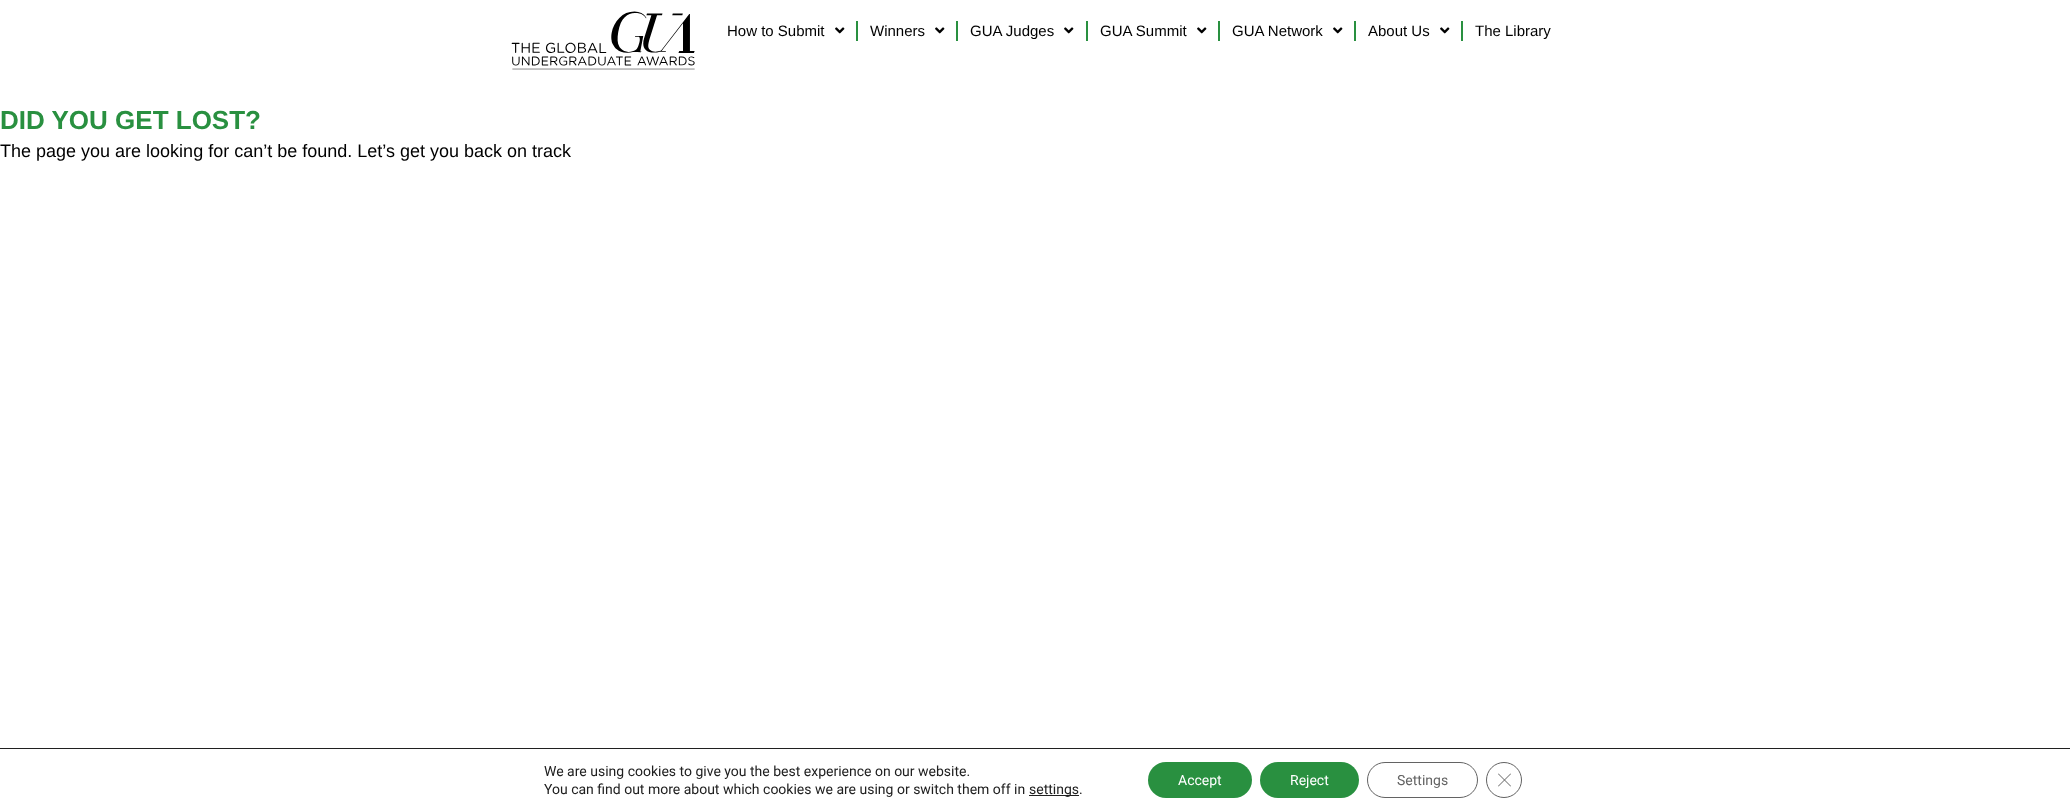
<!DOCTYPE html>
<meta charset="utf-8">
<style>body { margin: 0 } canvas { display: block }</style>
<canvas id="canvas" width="2070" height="811"></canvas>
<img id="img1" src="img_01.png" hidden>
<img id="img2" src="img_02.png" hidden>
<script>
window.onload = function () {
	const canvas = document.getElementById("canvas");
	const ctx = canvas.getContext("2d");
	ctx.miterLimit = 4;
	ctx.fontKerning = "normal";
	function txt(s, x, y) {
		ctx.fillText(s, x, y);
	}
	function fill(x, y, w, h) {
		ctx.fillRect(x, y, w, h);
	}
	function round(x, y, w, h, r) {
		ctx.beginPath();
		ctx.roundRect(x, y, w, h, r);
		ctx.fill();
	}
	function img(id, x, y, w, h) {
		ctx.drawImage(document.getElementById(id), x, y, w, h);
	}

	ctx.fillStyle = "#FFFFFF";
	fill(0, 0, 2070, 811);
	img("img1", 511, 11, 184, 59);
	img("img2", 835, 27, 10, 7);
	ctx.fillStyle = "#299040";
	fill(856, 21, 2, 20);
	img("img2", 935, 27, 10, 7);
	fill(956, 21, 2, 20);
	img("img2", 1064, 27, 10, 7);
	fill(1086, 21, 2, 20);
	img("img2", 1197, 27, 10, 7);
	fill(1218, 21, 2, 20);
	img("img2", 1333, 27, 10, 7);
	fill(1354, 21, 2, 20);
	img("img2", 1440, 27, 10, 7);
	fill(1461, 21, 2, 20);
	ctx.fillStyle = "#202020";
	fill(0, 748, 2070, 1);
	fill(1029, 795, 50, 1);
	ctx.fillStyle = "#299040";
	round(1148, 762, 104, 36, 18);
	round(1260, 762, 99, 36, 18);
	ctx.beginPath();
	ctx.roundRect(1367.5, 762.5, 110, 35, 17.5);
	ctx.strokeStyle = "#636363";
	ctx.stroke();
	ctx.beginPath();
	ctx.arc(1504, 780, 17.5, 0, Math.PI * 2);
	ctx.strokeStyle = "#626262";
	ctx.stroke();
	ctx.fillStyle = "#626262";
	ctx.beginPath();
	ctx.moveTo(1510.5, 773.5);
	ctx.lineTo(1511, 774);
	ctx.lineTo(1498.5, 786.5);
	ctx.lineTo(1498, 786);
	ctx.closePath();
	ctx.fill();
	ctx.beginPath();
	ctx.moveTo(1498, 774);
	ctx.lineTo(1498.5, 773.5);
	ctx.lineTo(1511, 786);
	ctx.lineTo(1510.5, 786.5);
	ctx.closePath();
	ctx.fill();
	ctx.font = "15px Liberation Sans";
	ctx.fillStyle = "#000000";
	txt("How to Submit", 727, 36);
	txt("Winners", 870, 36);
	txt("GUA Judges", 970, 36);
	txt("GUA Summit", 1100, 36);
	txt("GUA Network", 1232, 36);
	txt("About Us", 1368, 36);
	txt("The Library", 1475, 36);
	ctx.font = "bold 26px Liberation Sans";
	ctx.fillStyle = "#299040";
	txt("DID YOU GET LOST?", 0, 129);
	ctx.font = "18px Liberation Sans";
	ctx.fillStyle = "#000000";
	txt("The page you are looking for can’t be found. Let’s get you back on track", 0, 157);
	ctx.font = "14px Roboto";
	ctx.fillStyle = "#202020";
	txt("We are using cookies to give you the best experience on our website.", 544, 776);
	txt("You can find out more about which cookies we are using or switch them off in", 544, 794);
	txt("settings.", 1029, 794);
	ctx.fillStyle = "#FFFFFF";
	txt("Accept", 1178, 785);
	txt("Reject", 1290, 785);
	ctx.fillStyle = "#636363";
	txt("Settings", 1397, 785);
};
</script>
